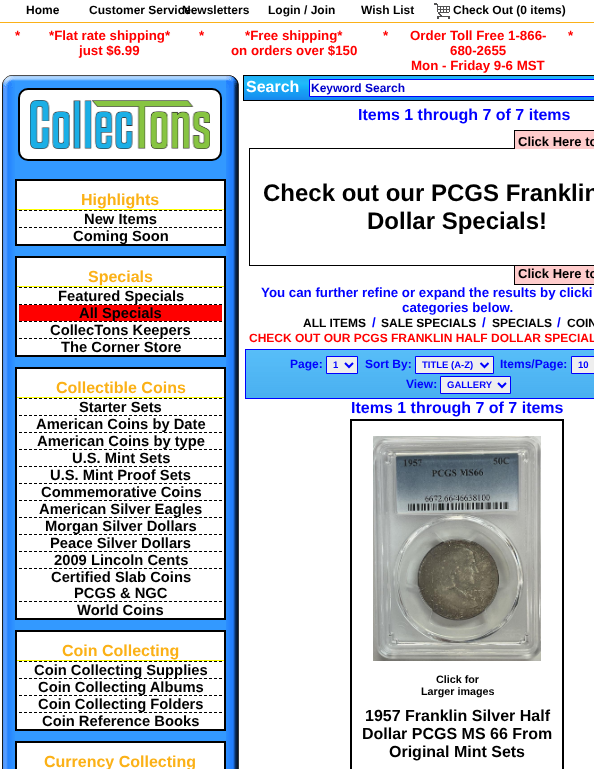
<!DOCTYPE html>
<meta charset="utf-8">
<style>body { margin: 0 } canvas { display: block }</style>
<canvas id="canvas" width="594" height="769"></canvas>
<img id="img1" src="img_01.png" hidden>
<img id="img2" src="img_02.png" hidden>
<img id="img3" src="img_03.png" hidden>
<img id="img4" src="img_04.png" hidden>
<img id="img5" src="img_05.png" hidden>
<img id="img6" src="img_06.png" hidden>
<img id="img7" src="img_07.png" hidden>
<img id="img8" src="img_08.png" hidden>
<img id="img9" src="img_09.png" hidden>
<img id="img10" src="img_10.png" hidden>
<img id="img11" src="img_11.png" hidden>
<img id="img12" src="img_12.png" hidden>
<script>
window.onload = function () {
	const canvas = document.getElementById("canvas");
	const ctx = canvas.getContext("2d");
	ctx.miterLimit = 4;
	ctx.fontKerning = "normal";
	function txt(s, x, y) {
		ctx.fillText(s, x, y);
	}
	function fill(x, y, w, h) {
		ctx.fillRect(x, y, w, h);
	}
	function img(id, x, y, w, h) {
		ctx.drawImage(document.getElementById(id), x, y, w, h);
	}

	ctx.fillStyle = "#FFFFFF";
	fill(0, 0, 594, 769);
	img("img1", 434, 3, 16, 16);
	ctx.fillStyle = "#FBB118";
	fill(0, 22, 594, 1);
	ctx.fillStyle = "#3399FF";
	fill(15, 81, 211, 660);
	img("img2", 2, 75, 13, 13);
	img("img3", 15, 75, 211, 6);
	img("img4", 226, 75, 13, 13);
	img("img5", 2, 88, 13, 81);
	ctx.fillStyle = "#FFFFFF";
	ctx.beginPath();
	ctx.roundRect(19, 89, 202, 71, 9);
	ctx.fill();
	ctx.strokeStyle = "#000000";
	ctx.lineWidth = 2;
	ctx.stroke();
	img("img6", 30, 100, 180, 49);
	img("img7", 226, 88, 13, 81);
	img("img8", 2, 169, 13, 600);
	ctx.beginPath();
	ctx.rect(16, 180, 209, 65);
	ctx.fill();
	ctx.stroke();
	ctx.fillStyle = "#FFFF00";
	fill(17, 209, 207, 1);
	ctx.beginPath();
	ctx.moveTo(19, 210.5);
	ctx.lineTo(222, 210.5);
	ctx.lineWidth = 1;
	ctx.setLineDash([3, 2]);
	ctx.stroke();
	ctx.beginPath();
	ctx.moveTo(19, 227.5);
	ctx.lineTo(222, 227.5);
	ctx.stroke();
	ctx.fillStyle = "#FFFFFF";
	ctx.beginPath();
	ctx.rect(16, 257, 209, 99);
	ctx.fill();
	ctx.lineWidth = 2;
	ctx.setLineDash([]);
	ctx.stroke();
	ctx.fillStyle = "#FFFF00";
	fill(17, 286, 207, 1);
	ctx.beginPath();
	ctx.moveTo(19, 287.5);
	ctx.lineTo(222, 287.5);
	ctx.lineWidth = 1;
	ctx.setLineDash([3, 2]);
	ctx.stroke();
	ctx.beginPath();
	ctx.moveTo(19, 304.5);
	ctx.lineTo(222, 304.5);
	ctx.stroke();
	ctx.fillStyle = "#FF0000";
	fill(19, 305, 203, 16);
	ctx.beginPath();
	ctx.moveTo(19, 321.5);
	ctx.lineTo(222, 321.5);
	ctx.stroke();
	ctx.beginPath();
	ctx.moveTo(19, 338.5);
	ctx.lineTo(222, 338.5);
	ctx.stroke();
	ctx.fillStyle = "#FFFFFF";
	ctx.beginPath();
	ctx.rect(16, 368, 209, 251);
	ctx.fill();
	ctx.lineWidth = 2;
	ctx.setLineDash([]);
	ctx.stroke();
	ctx.fillStyle = "#FFFF00";
	fill(17, 397, 207, 1);
	ctx.beginPath();
	ctx.moveTo(19, 398.5);
	ctx.lineTo(222, 398.5);
	ctx.lineWidth = 1;
	ctx.setLineDash([3, 2]);
	ctx.stroke();
	ctx.beginPath();
	ctx.moveTo(19, 415.5);
	ctx.lineTo(222, 415.5);
	ctx.stroke();
	ctx.beginPath();
	ctx.moveTo(19, 432.5);
	ctx.lineTo(222, 432.5);
	ctx.stroke();
	ctx.beginPath();
	ctx.moveTo(19, 449.5);
	ctx.lineTo(222, 449.5);
	ctx.stroke();
	ctx.beginPath();
	ctx.moveTo(19, 466.5);
	ctx.lineTo(222, 466.5);
	ctx.stroke();
	ctx.beginPath();
	ctx.moveTo(19, 483.5);
	ctx.lineTo(222, 483.5);
	ctx.stroke();
	ctx.beginPath();
	ctx.moveTo(19, 500.5);
	ctx.lineTo(222, 500.5);
	ctx.stroke();
	ctx.beginPath();
	ctx.moveTo(19, 517.5);
	ctx.lineTo(222, 517.5);
	ctx.stroke();
	ctx.beginPath();
	ctx.moveTo(19, 534.5);
	ctx.lineTo(222, 534.5);
	ctx.stroke();
	ctx.beginPath();
	ctx.moveTo(19, 551.5);
	ctx.lineTo(222, 551.5);
	ctx.stroke();
	ctx.beginPath();
	ctx.moveTo(19, 568.5);
	ctx.lineTo(222, 568.5);
	ctx.stroke();
	ctx.beginPath();
	ctx.moveTo(19, 601.5);
	ctx.lineTo(222, 601.5);
	ctx.stroke();
	ctx.fillStyle = "#FFFFFF";
	ctx.beginPath();
	ctx.rect(16, 631, 209, 99);
	ctx.fill();
	ctx.lineWidth = 2;
	ctx.setLineDash([]);
	ctx.stroke();
	ctx.fillStyle = "#FFFF00";
	fill(17, 660, 207, 1);
	ctx.beginPath();
	ctx.moveTo(19, 661.5);
	ctx.lineTo(222, 661.5);
	ctx.lineWidth = 1;
	ctx.setLineDash([3, 2]);
	ctx.stroke();
	ctx.beginPath();
	ctx.moveTo(19, 678.5);
	ctx.lineTo(222, 678.5);
	ctx.stroke();
	ctx.beginPath();
	ctx.moveTo(19, 695.5);
	ctx.lineTo(222, 695.5);
	ctx.stroke();
	ctx.beginPath();
	ctx.moveTo(19, 712.5);
	ctx.lineTo(222, 712.5);
	ctx.stroke();
	ctx.lineWidth = 2;
	ctx.setLineDash([]);
	ctx.strokeRect(16, 742, 209, 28);
	img("img9", 226, 169, 13, 600);
	img("img10", 244, 76, 350, 24);
	ctx.lineWidth = 1;
	ctx.strokeRect(243.5, 75.5, 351, 25);
	ctx.fillStyle = "#FFFFFF";
	ctx.beginPath();
	ctx.rect(309.5, 79.5, 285, 17);
	ctx.fill();
	ctx.strokeStyle = "#0000FF";
	ctx.stroke();
	ctx.strokeStyle = "#000000";
	ctx.strokeRect(249.5, 148.5, 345, 117);
	ctx.fillStyle = "#FFCCCC";
	fill(515, 131, 79, 18);
	ctx.fillStyle = "#000000";
	fill(514, 130, 80, 1);
	fill(514, 130, 1, 19);
	ctx.fillStyle = "#FFCCCC";
	fill(515, 266, 79, 18);
	ctx.fillStyle = "#000000";
	fill(514, 284, 80, 1);
	fill(514, 266, 1, 19);
	img("img11", 246, 350, 348, 48);
	ctx.strokeStyle = "#0000FF";
	ctx.strokeRect(245.5, 349.5, 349, 49);
	ctx.fillStyle = "#EEEEEE";
	ctx.beginPath();
	ctx.rect(326.5, 356.5, 31, 17);
	ctx.fill();
	ctx.stroke();
	ctx.beginPath();
	ctx.moveTo(345, 363);
	ctx.lineTo(349, 367);
	ctx.lineTo(353, 363);
	ctx.lineWidth = 2;
	ctx.stroke();
	ctx.beginPath();
	ctx.rect(415.5, 356.5, 78, 17);
	ctx.fill();
	ctx.lineWidth = 1;
	ctx.stroke();
	ctx.beginPath();
	ctx.moveTo(480.5, 363);
	ctx.lineTo(484.5, 367);
	ctx.lineTo(488.5, 363);
	ctx.lineWidth = 2;
	ctx.stroke();
	ctx.beginPath();
	ctx.rect(571.5, 356.5, 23, 17);
	ctx.fill();
	ctx.lineWidth = 1;
	ctx.stroke();
	ctx.beginPath();
	ctx.rect(440.5, 376.5, 70, 17);
	ctx.fill();
	ctx.stroke();
	ctx.beginPath();
	ctx.moveTo(498, 383);
	ctx.lineTo(502, 387);
	ctx.lineTo(506, 383);
	ctx.lineWidth = 2;
	ctx.stroke();
	ctx.strokeStyle = "#000000";
	ctx.strokeRect(351, 420, 212, 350);
	img("img12", 373, 436, 168, 225);
	ctx.font = "bold 12px Liberation Sans";
	ctx.fillStyle = "#000000";
	txt("Home", 26, 14);
	txt("Customer Service", 89, 14);
	txt("Newsletters", 182, 14);
	txt("Login / Join", 268, 14);
	txt("Wish List", 361, 14);
	txt("Check Out (0 items)", 453, 14);
	ctx.font = "bold 13.3px Liberation Sans";
	ctx.fillStyle = "#FF0000";
	txt("*", 15, 40);
	txt("*Flat rate shipping*", 49, 40);
	txt("just $6.99", 79, 55);
	txt("*", 199, 40);
	txt("*Free shipping*", 245, 40);
	txt("on orders over $150", 231, 55);
	txt("*", 383, 40);
	txt("Order Toll Free 1-866-", 410, 40);
	txt("680-2655", 450, 55);
	txt("Mon - Friday 9-6 MST", 411, 70);
	txt("*", 568, 40);
	ctx.font = "bold 16px Liberation Sans";
	ctx.fillStyle = "#FBB117";
	txt("Highlights", 81, 205);
	ctx.font = "bold 14.75px Liberation Sans";
	ctx.fillStyle = "#000000";
	txt("New Items", 84, 224);
	txt("Coming Soon", 73, 241);
	ctx.font = "bold 16px Liberation Sans";
	ctx.fillStyle = "#FBB117";
	txt("Specials", 88, 282);
	ctx.font = "bold 14.75px Liberation Sans";
	ctx.fillStyle = "#000000";
	txt("Featured Specials", 58, 301);
	txt("All Specials", 79, 318);
	txt("CollecTons Keepers", 50, 335);
	txt("The Corner Store", 61, 352);
	ctx.font = "bold 16px Liberation Sans";
	ctx.fillStyle = "#FBB117";
	txt("Collectible Coins", 56, 393);
	ctx.font = "bold 14.75px Liberation Sans";
	ctx.fillStyle = "#000000";
	txt("Starter Sets", 79, 412);
	txt("American Coins by Date", 36, 429);
	txt("American Coins by type", 37, 446);
	txt("U.S. Mint Sets", 72, 463);
	txt("U.S. Mint Proof Sets", 50, 480);
	txt("Commemorative Coins", 41, 497);
	txt("American Silver Eagles", 39, 514);
	txt("Morgan Silver Dollars", 45, 531);
	txt("Peace Silver Dollars", 50, 548);
	txt("2009 Lincoln Cents", 54, 565);
	txt("Certified Slab Coins", 51, 582);
	txt("PCGS & NGC", 74, 598);
	txt("World Coins", 77, 615);
	ctx.font = "bold 16px Liberation Sans";
	ctx.fillStyle = "#FBB117";
	txt("Coin Collecting", 62, 656);
	ctx.font = "bold 14.75px Liberation Sans";
	ctx.fillStyle = "#000000";
	txt("Coin Collecting Supplies", 34, 675);
	txt("Coin Collecting Albums", 38, 692);
	txt("Coin Collecting Folders", 38, 709);
	txt("Coin Reference Books", 42, 726);
	ctx.font = "bold 16px Liberation Sans";
	ctx.fillStyle = "#FBB117";
	txt("Currency Collecting", 44, 767);
	ctx.fillStyle = "#FFFFFF";
	txt("Search", 246, 92);
	ctx.font = "bold 12px Liberation Sans";
	ctx.fillStyle = "#0000CC";
	txt("Keyword Search", 311, 92);
	ctx.font = "bold 16px Liberation Sans";
	ctx.fillStyle = "#0000FF";
	txt("Items 1 through 7 of 7 items", 358, 120);
	ctx.font = "bold 13px Liberation Sans";
	ctx.fillStyle = "#000000";
	txt("Click Here to", 518, 146);
	ctx.font = "bold 24px Liberation Sans";
	txt("Check out our PCGS Franklin", 263, 201);
	txt("Dollar Specials!", 367, 229);
	ctx.font = "bold 13px Liberation Sans";
	txt("Click Here to", 518, 278);
	ctx.font = "bold 13.3px Liberation Sans";
	ctx.fillStyle = "#0000FF";
	txt("You can further refine or expand the results by clicki", 261, 297);
	txt("categories below.", 402, 312);
	ctx.font = "bold 12px Liberation Sans";
	ctx.fillStyle = "#000000";
	txt("ALL ITEMS", 303, 327);
	ctx.font = "bold 13.3px Liberation Sans";
	ctx.fillStyle = "#0000FF";
	txt("/", 372, 327);
	ctx.font = "bold 12px Liberation Sans";
	ctx.fillStyle = "#000000";
	txt("SALE SPECIALS", 381, 327);
	ctx.font = "bold 13.3px Liberation Sans";
	ctx.fillStyle = "#0000FF";
	txt("/", 482, 327);
	ctx.font = "bold 12px Liberation Sans";
	ctx.fillStyle = "#000000";
	txt("SPECIALS", 492, 327);
	ctx.font = "bold 13.3px Liberation Sans";
	ctx.fillStyle = "#0000FF";
	txt("/", 557, 327);
	ctx.font = "bold 12px Liberation Sans";
	ctx.fillStyle = "#000000";
	txt("COIN", 567, 327);
	ctx.fillStyle = "#FF0000";
	txt("CHECK OUT OUR PCGS FRANKLIN HALF DOLLAR SPECIAL", 249, 342);
	ctx.fillStyle = "#0000FF";
	txt("Page:", 290, 368);
	ctx.font = "bold 9.5px Liberation Sans";
	txt("1", 333, 368);
	ctx.font = "bold 12px Liberation Sans";
	txt("Sort By:", 365, 368);
	ctx.font = "bold 9.5px Liberation Sans";
	txt("TITLE (A-Z)", 422, 368);
	ctx.font = "bold 12px Liberation Sans";
	txt("Items/Page:", 500, 368);
	ctx.font = "bold 9.5px Liberation Sans";
	txt("10", 578, 368);
	ctx.font = "bold 12px Liberation Sans";
	txt("View:", 406, 388);
	ctx.font = "bold 9.5px Liberation Sans";
	txt("GALLERY", 447, 388);
	ctx.font = "bold 16px Liberation Sans";
	txt("Items 1 through 7 of 7 items", 351, 413);
	ctx.font = "bold 10.75px Liberation Sans";
	ctx.fillStyle = "#000000";
	txt("Click for", 436, 683);
	txt("Larger images", 421, 695);
	ctx.font = "bold 16px Liberation Sans";
	txt("1957 Franklin Silver Half", 365, 721);
	txt("Dollar PCGS MS 66 From", 362, 739);
	txt("Original Mint Sets", 389, 757);
};
</script>
